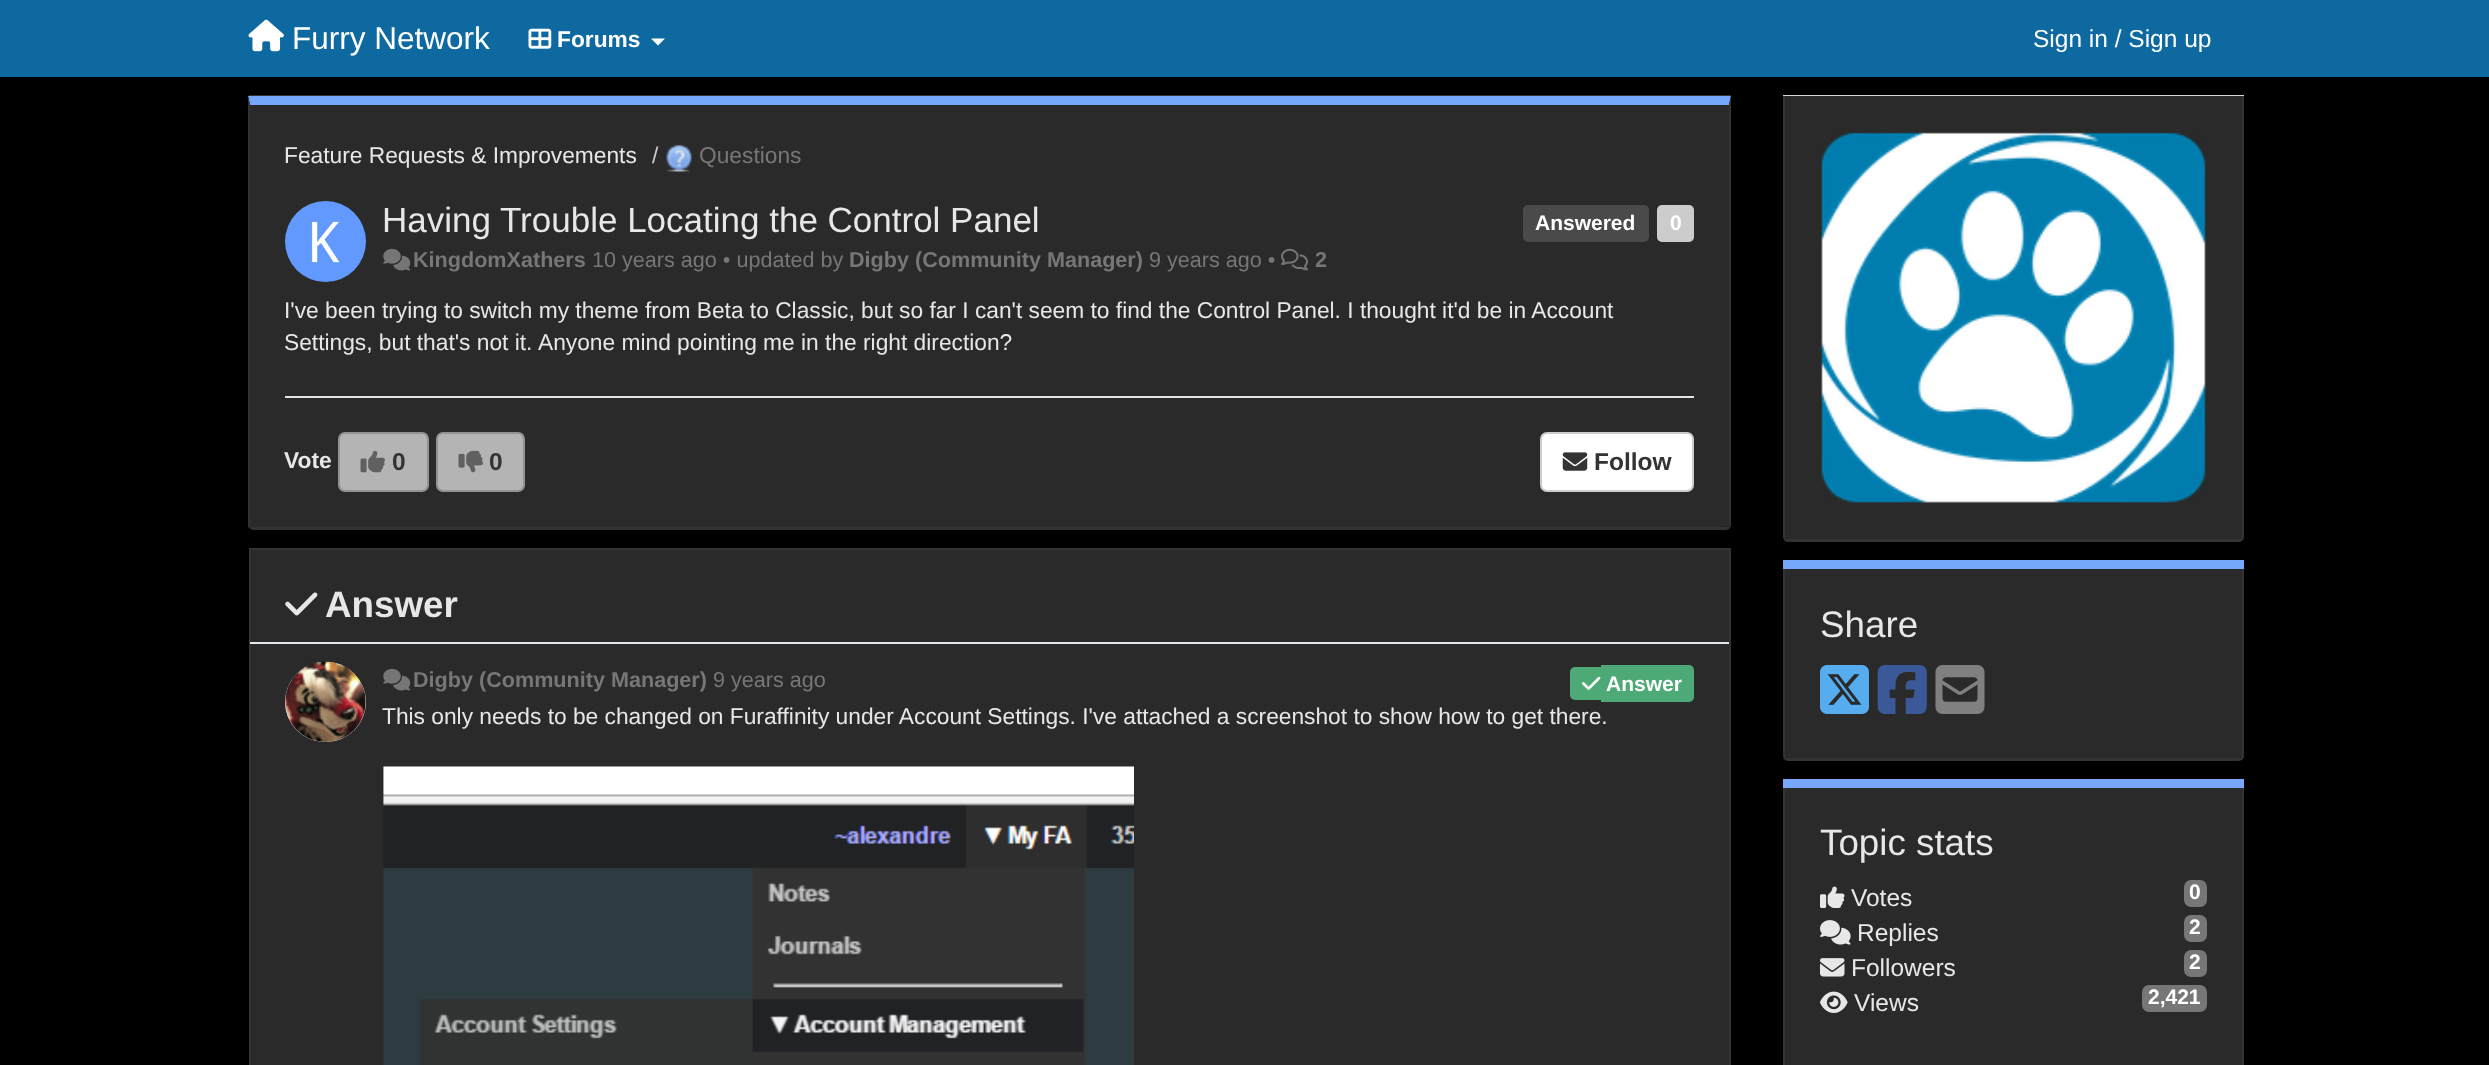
<!DOCTYPE html>
<meta charset="utf-8">
<style>body { margin: 0 } canvas { display: block }</style>
<canvas id="canvas" width="2489" height="1065"></canvas>
<img id="img1" src="img_01.png" hidden>
<img id="img2" src="img_02.png" hidden>
<img id="img3" src="img_03.png" hidden>
<img id="img4" src="img_04.png" hidden>
<img id="img5" src="img_05.png" hidden>
<img id="img6" src="img_06.png" hidden>
<img id="img7" src="img_07.png" hidden>
<img id="img8" src="img_08.png" hidden>
<img id="img9" src="img_09.png" hidden>
<img id="img10" src="img_10.png" hidden>
<img id="img11" src="img_11.png" hidden>
<img id="img12" src="img_12.png" hidden>
<img id="img13" src="img_13.png" hidden>
<img id="img14" src="img_14.png" hidden>
<img id="img15" src="img_15.png" hidden>
<img id="img16" src="img_16.png" hidden>
<img id="img17" src="img_17.png" hidden>
<img id="img18" src="img_18.png" hidden>
<img id="img19" src="img_19.png" hidden>
<img id="img20" src="img_20.png" hidden>
<img id="img21" src="img_21.png" hidden>
<script>
window.onload = function () {
	const canvas = document.getElementById("canvas");
	const ctx = canvas.getContext("2d");
	ctx.miterLimit = 4;
	ctx.fontKerning = "normal";
	function txt(s, x, y) {
		ctx.fillText(s, x, y);
	}
	function fill(x, y, w, h) {
		ctx.fillRect(x, y, w, h);
	}
	function round(x, y, w, h, r) {
		ctx.beginPath();
		ctx.roundRect(x, y, w, h, r);
		ctx.fill();
	}
	function img(id, x, y, w, h) {
		ctx.drawImage(document.getElementById(id), x, y, w, h);
	}

	ctx.fillStyle = "#000000";
	fill(0, 0, 2489, 1065);
	ctx.fillStyle = "#0D699F";
	fill(0, 0, 2489, 77);
	img("img1", 248, 19, 36, 33);
	img("img2", 528, 28, 24, 21);
	ctx.fillStyle = "#FFFFFF";
	ctx.beginPath();
	ctx.moveTo(651, 38.5);
	ctx.lineTo(665, 38.5);
	ctx.lineTo(658, 45.5);
	ctx.closePath();
	ctx.fill();
	ctx.fillStyle = "#333333";
	fill(249, 95, 1482, 2);
	ctx.fillStyle = "#2A2A2A";
	ctx.beginPath();
	ctx.moveTo(250, 105);
	ctx.lineTo(1729, 105);
	ctx.lineTo(1729, 525);
	ctx.bezierCurveTo(1729, 526, 1727, 527, 1726, 527);
	ctx.lineTo(254, 527);
	ctx.bezierCurveTo(252, 527, 250, 526, 250, 525);
	ctx.closePath();
	ctx.fill();
	ctx.fillStyle = "#76A7FA";
	ctx.beginPath();
	ctx.moveTo(248, 96);
	ctx.lineTo(250, 105);
	ctx.lineTo(1729, 105);
	ctx.lineTo(1731, 96);
	ctx.closePath();
	ctx.fill();
	ctx.fillStyle = "#333333";
	ctx.beginPath();
	ctx.moveTo(1731, 96);
	ctx.lineTo(1731, 526);
	ctx.lineTo(1730, 528);
	ctx.lineTo(1729, 526);
	ctx.lineTo(1729, 525);
	ctx.lineTo(1729, 105);
	ctx.closePath();
	ctx.fill();
	ctx.beginPath();
	ctx.moveTo(1730, 528);
	ctx.bezierCurveTo(1729, 529, 1727, 530, 1726, 530);
	ctx.lineTo(254, 530);
	ctx.bezierCurveTo(252, 530, 251, 529, 249, 528);
	ctx.lineTo(251, 526);
	ctx.lineTo(254, 527);
	ctx.lineTo(1726, 527);
	ctx.lineTo(1729, 526);
	ctx.closePath();
	ctx.fill();
	ctx.beginPath();
	ctx.moveTo(250, 105);
	ctx.lineTo(250, 525);
	ctx.lineTo(251, 526);
	ctx.lineTo(249, 528);
	ctx.lineTo(248, 527);
	ctx.lineTo(248, 96);
	ctx.closePath();
	ctx.fill();
	img("img3", 666, 144, 26, 28);
	ctx.fillStyle = "#6199FF";
	ctx.beginPath();
	ctx.arc(325.5, 241.5, 40.5, 0, Math.PI * 2);
	ctx.fill();
	img("img4", 311, 221, 29, 42);
	ctx.fillStyle = "#4A4A4A";
	round(1523, 205, 126, 37, 5);
	ctx.fillStyle = "#CCCCCC";
	round(1657, 205, 37, 37, 5);
	img("img5", 383, 248, 28, 23);
	img("img6", 1281, 248, 27, 23);
	ctx.fillStyle = "#E5E5E5";
	fill(285, 396, 1409, 2);
	ctx.fillStyle = "#B4B4B4";
	ctx.beginPath();
	ctx.roundRect(339, 433, 89, 58, 6);
	ctx.fill();
	ctx.strokeStyle = "#939393";
	ctx.lineWidth = 2;
	ctx.stroke();
	img("img7", 360, 450, 25, 23);
	ctx.beginPath();
	ctx.roundRect(437, 433, 87, 58, 6);
	ctx.fill();
	ctx.stroke();
	img("img8", 458, 450, 25, 23);
	ctx.fillStyle = "#FFFFFF";
	ctx.beginPath();
	ctx.roundRect(1541, 433, 152, 58, 6);
	ctx.fill();
	ctx.strokeStyle = "#CCCCCC";
	ctx.stroke();
	img("img9", 1562, 452, 26, 19);
	ctx.fillStyle = "#2A2A2A";
	ctx.beginPath();
	ctx.moveTo(250, 550);
	ctx.lineTo(1729, 550);
	ctx.lineTo(1729, 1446);
	ctx.bezierCurveTo(1729, 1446, 1727, 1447, 1726, 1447);
	ctx.lineTo(254, 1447);
	ctx.bezierCurveTo(252, 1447, 250, 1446, 250, 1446);
	ctx.closePath();
	ctx.fill();
	ctx.strokeStyle = "#333333";
	ctx.strokeRect(250, 549, 1480, 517);
	img("img10", 285, 592, 33, 24);
	ctx.fillStyle = "#E1E8ED";
	fill(250, 642, 1479, 2);
	ctx.fillStyle = "#FFFFFF";
	round(285, 662, 81, 80, 40);
	img("img11", 285, 661, 81, 81);
	img("img5", 383, 668, 28, 23);
	ctx.fillStyle = "#4DAA77";
	ctx.beginPath();
	ctx.roundRect(1570, 667, 31, 33, [5, 0, 0, 5]);
	ctx.fill();
	ctx.beginPath();
	ctx.roundRect(1601, 665, 93, 37, [0, 5, 5, 0]);
	ctx.fill();
	img("img12", 1582, 676, 19, 14);
	img("img13", 383, 766, 751, 299);
	ctx.fillStyle = "#D8D8D8";
	fill(1783, 95, 461, 1);
	ctx.fillStyle = "#2A2A2A";
	ctx.beginPath();
	ctx.moveTo(1785, 96);
	ctx.lineTo(2242, 96);
	ctx.lineTo(2242, 537);
	ctx.bezierCurveTo(2242, 538, 2240, 539, 2238, 539);
	ctx.lineTo(1788, 539);
	ctx.bezierCurveTo(1787, 539, 1785, 538, 1785, 537);
	ctx.closePath();
	ctx.fill();
	ctx.fillStyle = "#333333";
	ctx.beginPath();
	ctx.moveTo(1783, 96);
	ctx.lineTo(2244, 96);
	ctx.lineTo(2244, 537);
	ctx.bezierCurveTo(2244, 540, 2241, 542, 2238, 542);
	ctx.lineTo(1788, 542);
	ctx.bezierCurveTo(1786, 542, 1783, 540, 1783, 537);
	ctx.closePath();
	ctx.moveTo(1785, 96);
	ctx.lineTo(2242, 96);
	ctx.lineTo(2242, 537);
	ctx.bezierCurveTo(2242, 538, 2240, 539, 2238, 539);
	ctx.lineTo(1788, 539);
	ctx.bezierCurveTo(1787, 539, 1785, 538, 1785, 537);
	ctx.closePath();
	ctx.fill("evenodd");
	img("img14", 1821, 132, 385, 371);
	ctx.fillStyle = "#76A7FA";
	fill(1783, 560, 461, 9);
	ctx.fillStyle = "#2A2A2A";
	ctx.beginPath();
	ctx.moveTo(1785, 569);
	ctx.lineTo(2242, 569);
	ctx.lineTo(2242, 756);
	ctx.bezierCurveTo(2242, 757, 2240, 758, 2238, 758);
	ctx.lineTo(1788, 758);
	ctx.bezierCurveTo(1787, 758, 1785, 757, 1785, 756);
	ctx.closePath();
	ctx.fill();
	ctx.fillStyle = "#333333";
	ctx.beginPath();
	ctx.moveTo(1783, 569);
	ctx.lineTo(2244, 569);
	ctx.lineTo(2244, 756);
	ctx.bezierCurveTo(2244, 759, 2241, 761, 2238, 761);
	ctx.lineTo(1788, 761);
	ctx.bezierCurveTo(1786, 761, 1783, 759, 1783, 756);
	ctx.closePath();
	ctx.moveTo(1785, 569);
	ctx.lineTo(2242, 569);
	ctx.lineTo(2242, 756);
	ctx.bezierCurveTo(2242, 757, 2240, 758, 2238, 758);
	ctx.lineTo(1788, 758);
	ctx.bezierCurveTo(1787, 758, 1785, 757, 1785, 756);
	ctx.closePath();
	ctx.fill("evenodd");
	img("img15", 1820, 665, 49, 49);
	img("img16", 1877, 665, 50, 49);
	img("img17", 1935, 665, 50, 49);
	ctx.fillStyle = "#76A7FA";
	fill(1783, 779, 461, 9);
	ctx.fillStyle = "#2A2A2A";
	ctx.beginPath();
	ctx.moveTo(1785, 788);
	ctx.lineTo(2242, 788);
	ctx.lineTo(2242, 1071);
	ctx.bezierCurveTo(2242, 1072, 2240, 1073, 2238, 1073);
	ctx.lineTo(1788, 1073);
	ctx.bezierCurveTo(1787, 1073, 1785, 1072, 1785, 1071);
	ctx.closePath();
	ctx.fill();
	ctx.fillStyle = "#333333";
	ctx.beginPath();
	ctx.moveTo(1783, 788);
	ctx.lineTo(2244, 788);
	ctx.lineTo(2244, 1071);
	ctx.bezierCurveTo(2244, 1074, 2241, 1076, 2238, 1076);
	ctx.lineTo(1788, 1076);
	ctx.bezierCurveTo(1786, 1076, 1783, 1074, 1783, 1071);
	ctx.closePath();
	ctx.moveTo(1785, 788);
	ctx.lineTo(2242, 788);
	ctx.lineTo(2242, 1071);
	ctx.bezierCurveTo(2242, 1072, 2240, 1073, 2238, 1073);
	ctx.lineTo(1788, 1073);
	ctx.bezierCurveTo(1787, 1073, 1785, 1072, 1785, 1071);
	ctx.closePath();
	ctx.fill("evenodd");
	img("img18", 1820, 886, 25, 22);
	ctx.fillStyle = "#777777";
	round(2184, 880, 23, 27, 7);
	img("img19", 1820, 920, 31, 25);
	round(2184, 915, 23, 27, 7);
	img("img20", 1820, 958, 25, 19);
	round(2184, 950, 23, 27, 7);
	img("img21", 1820, 991, 28, 22);
	round(2142, 985, 65, 27, 7);
	ctx.font = "31.5px Liberation Sans";
	ctx.fillStyle = "#FFFFFF";
	txt("Furry Network", 292, 49);
	ctx.font = "bold 22.75px Liberation Sans";
	txt("Forums", 557, 47);
	ctx.font = "24.5px Liberation Sans";
	txt("Sign in / Sign up", 2033, 47);
	ctx.font = "22.75px Liberation Sans";
	ctx.fillStyle = "#E7E7E7";
	txt("Feature Requests & Improvements", 284, 163);
	ctx.fillStyle = "#CCCCCC";
	txt("/", 652, 163);
	ctx.fillStyle = "#777777";
	txt("Questions", 699, 163);
	ctx.font = "35px Liberation Sans";
	ctx.fillStyle = "#E7E7E7";
	txt("Having Trouble Locating the Control Panel", 382, 232);
	ctx.font = "bold 21px Liberation Sans";
	ctx.fillStyle = "#FFFFFF";
	txt("Answered", 1535, 230);
	txt("0", 1670, 230);
	ctx.font = "bold 21.6px Liberation Sans";
	ctx.fillStyle = "#777777";
	txt("KingdomXathers", 413, 267);
	ctx.font = "21.6px Liberation Sans";
	txt("10 years ago • updated by", 592, 267);
	ctx.font = "bold 21.6px Liberation Sans";
	txt("Digby (Community Manager)", 849, 267);
	ctx.font = "21.6px Liberation Sans";
	txt("9 years ago •", 1149, 267);
	ctx.font = "bold 21.6px Liberation Sans";
	txt("2", 1315, 267);
	ctx.font = "22.75px Liberation Sans";
	ctx.fillStyle = "#E7E7E7";
	txt("I've been trying to switch my theme from Beta to Classic, but so far I can't seem to find the Control Panel. I thought it'd be in Account", 284, 318);
	txt("Settings, but that's not it.", 284, 350);
	txt("Anyone mind pointing me in the right direction?", 538, 350);
	ctx.font = "bold 22.75px Liberation Sans";
	txt("Vote", 284, 468);
	ctx.font = "bold 24.5px Liberation Sans";
	ctx.fillStyle = "#333333";
	txt("0", 392, 470);
	txt("0", 489, 470);
	txt("Follow", 1594, 470);
	ctx.font = "bold 36.75px Liberation Sans";
	ctx.fillStyle = "#E7E7E7";
	txt("Answer", 325, 617);
	ctx.font = "bold 21.6px Liberation Sans";
	ctx.fillStyle = "#777777";
	txt("Digby (Community Manager)", 413, 687);
	ctx.font = "21.6px Liberation Sans";
	txt("9 years ago", 713, 687);
	ctx.font = "bold 21px Liberation Sans";
	ctx.fillStyle = "#FFFFFF";
	txt("Answer", 1606, 691);
	ctx.font = "22.75px Liberation Sans";
	ctx.fillStyle = "#E7E7E7";
	txt("This only needs to be changed on Furaffinity under Account Settings. I've attached a screenshot to show how to get there.", 382, 724);
	ctx.font = "36.75px Liberation Sans";
	txt("Share", 1820, 637);
	txt("Topic stats", 1820, 855);
	ctx.font = "24.5px Liberation Sans";
	txt("Votes", 1851, 906);
	ctx.font = "bold 21px Liberation Sans";
	ctx.fillStyle = "#FFFFFF";
	txt("0", 2189, 899);
	ctx.font = "24.5px Liberation Sans";
	ctx.fillStyle = "#E7E7E7";
	txt("Replies", 1857, 941);
	ctx.font = "bold 21px Liberation Sans";
	ctx.fillStyle = "#FFFFFF";
	txt("2", 2189, 934);
	ctx.font = "24.5px Liberation Sans";
	ctx.fillStyle = "#E7E7E7";
	txt("Followers", 1851, 976);
	ctx.font = "bold 21px Liberation Sans";
	ctx.fillStyle = "#FFFFFF";
	txt("2", 2189, 969);
	ctx.font = "24.5px Liberation Sans";
	ctx.fillStyle = "#E7E7E7";
	txt("Views", 1854, 1011);
	ctx.font = "bold 21px Liberation Sans";
	ctx.fillStyle = "#FFFFFF";
	txt("2,421", 2148, 1004);
};
</script>
